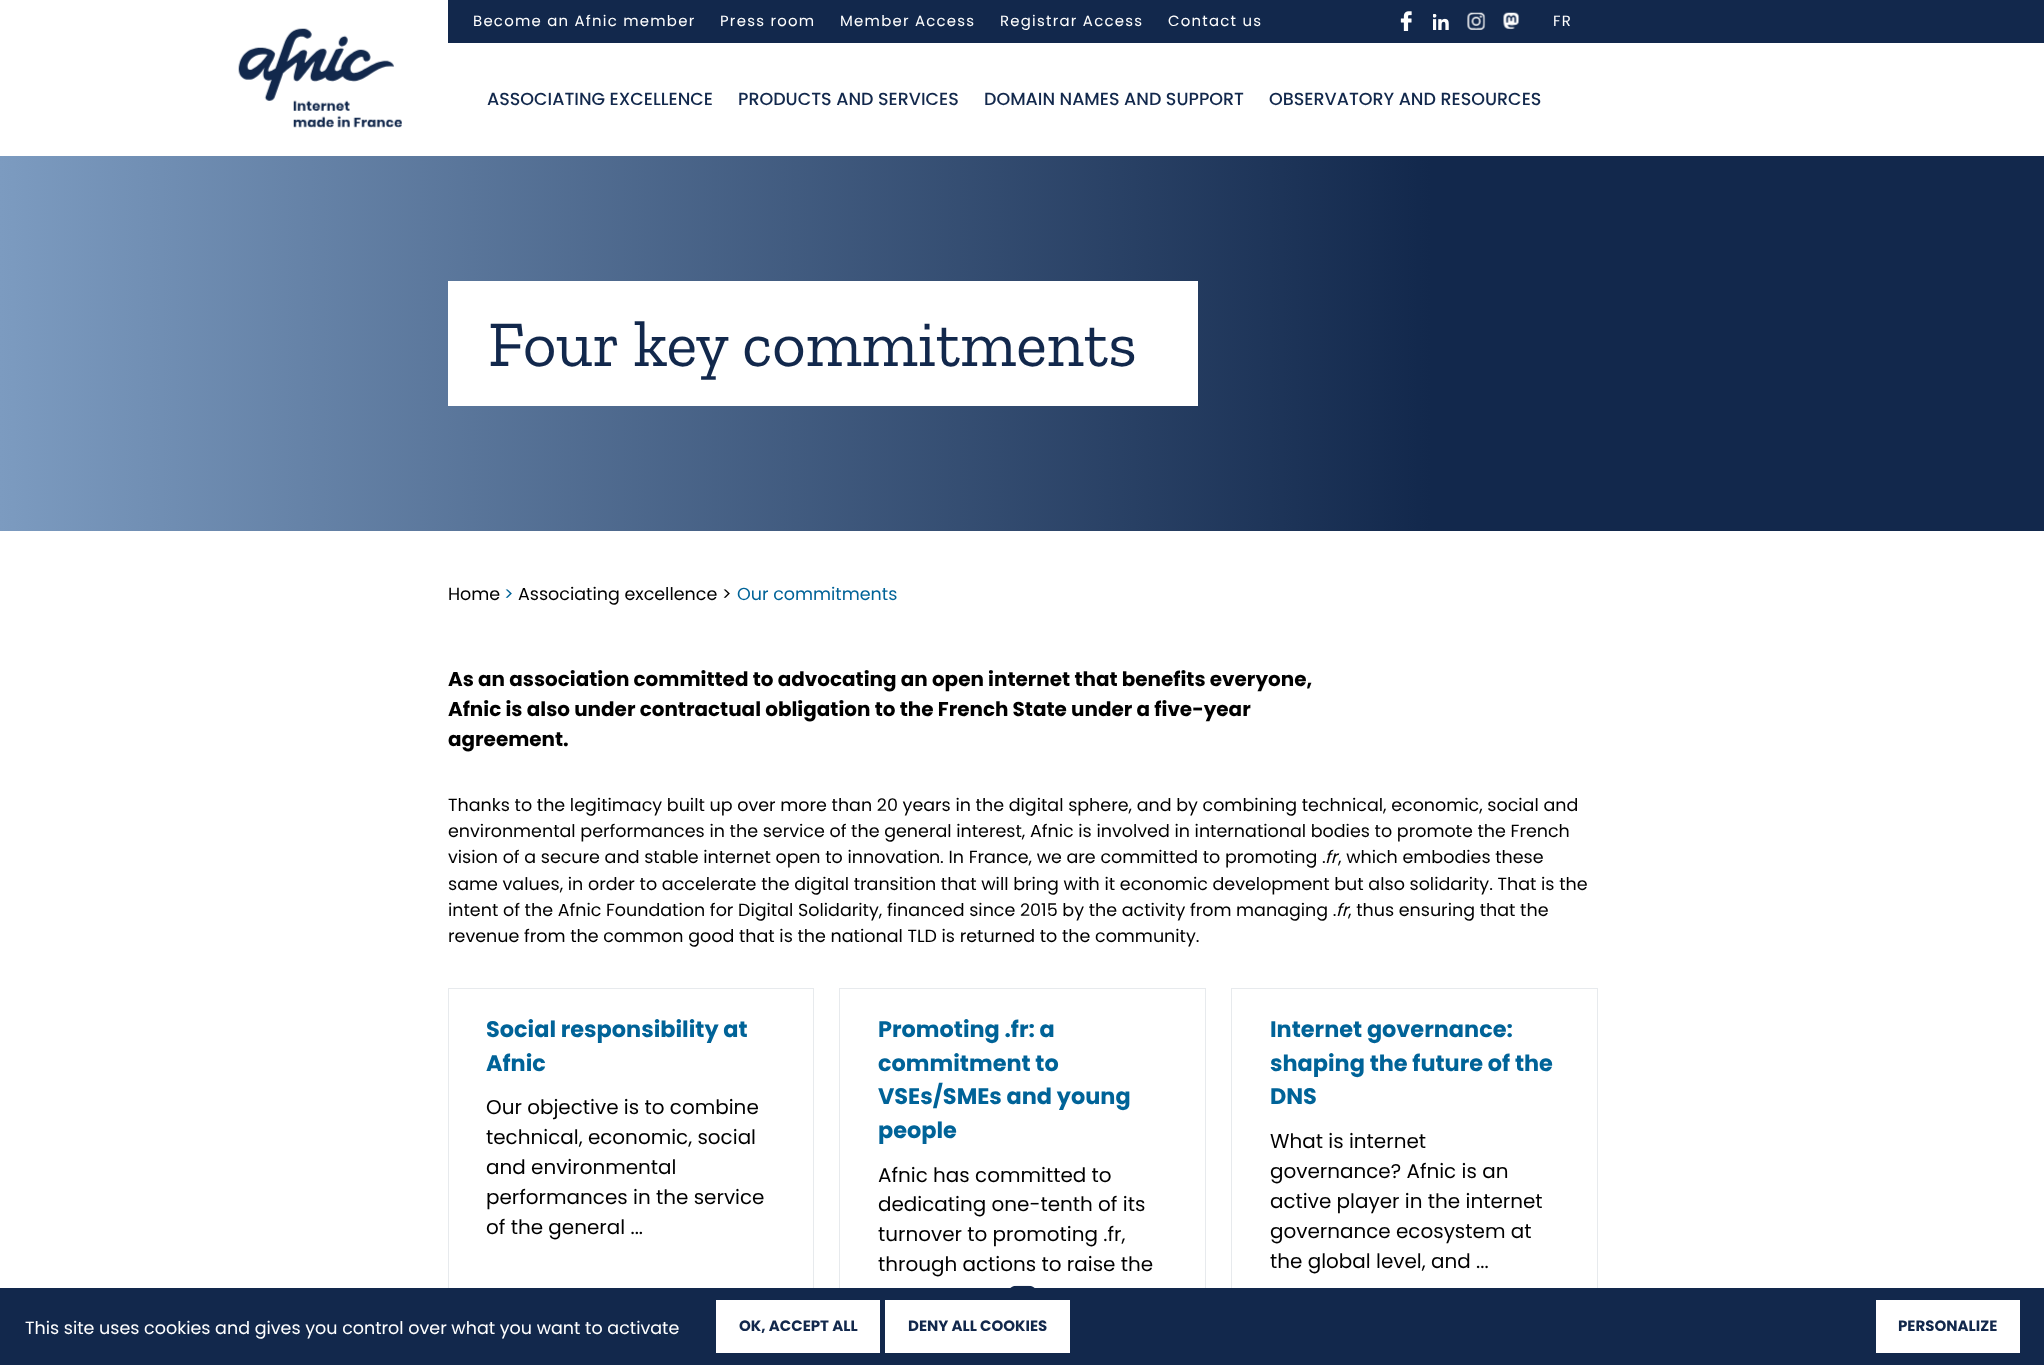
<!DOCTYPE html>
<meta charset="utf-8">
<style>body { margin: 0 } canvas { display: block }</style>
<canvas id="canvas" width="2044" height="1365"></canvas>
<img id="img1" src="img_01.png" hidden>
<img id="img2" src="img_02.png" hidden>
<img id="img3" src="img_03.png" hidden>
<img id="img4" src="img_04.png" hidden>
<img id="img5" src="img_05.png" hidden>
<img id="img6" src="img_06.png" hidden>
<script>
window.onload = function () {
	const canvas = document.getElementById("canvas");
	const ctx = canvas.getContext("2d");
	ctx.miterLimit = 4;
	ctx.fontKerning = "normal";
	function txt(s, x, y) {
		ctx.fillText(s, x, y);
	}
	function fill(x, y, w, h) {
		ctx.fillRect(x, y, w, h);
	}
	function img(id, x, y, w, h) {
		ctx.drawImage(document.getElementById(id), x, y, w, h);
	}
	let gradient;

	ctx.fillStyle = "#FFFFFF";
	fill(0, 0, 2044, 1365);
	ctx.fillStyle = "#12284C";
	fill(448, 0, 1596, 43);
	img("img1", 1400, 11, 12, 20);
	img("img2", 1433, 14, 16, 16);
	img("img3", 1467, 12, 19, 18);
	img("img4", 1503, 12, 17, 18);
	img("img5", 238, 28, 164, 100);
	fill(1431, 156, 613, 375);
	gradient = ctx.createLinearGradient(0, 344, 1431, 344);
	gradient.addColorStop(0, "#7C9BC0");
	gradient.addColorStop(1, "#12284C");
	ctx.fillStyle = gradient;
	fill(0, 156, 1431, 375);
	ctx.fillStyle = "#FFFFFF";
	fill(448, 281, 750, 125);
	ctx.strokeStyle = "#E7EAED";
	ctx.strokeRect(448.5, 988.5, 365, 347);
	ctx.strokeRect(839.5, 988.5, 366, 347);
	ctx.strokeRect(1231.5, 988.5, 366, 347);
	img("img6", 1010, 1285, 25, 3);
	ctx.fillStyle = "#12284C";
	fill(0, 1288, 2044, 77);
	ctx.fillStyle = "#FFFFFF";
	fill(716, 1300, 164, 53);
	fill(885, 1300, 185, 53);
	fill(1876, 1300, 144, 53);
	ctx.letterSpacing = "1.25px";
	ctx.font = "14.9px Poppins";
	txt("Become an Afnic member", 473, 26);
	txt("Press room", 720, 26);
	txt("Member Access", 840, 26);
	txt("Registrar Access", 1000, 26);
	txt("Contact us", 1168, 26);
	txt("FR", 1553, 26);
	ctx.letterSpacing = "0px";
	ctx.font = "500 17.5px Poppins";
	ctx.fillStyle = "#12284C";
	txt("ASSOCIATING EXCELLENCE", 487, 105);
	txt("PRODUCTS AND SERVICES", 738, 105);
	txt("DOMAIN NAMES AND SUPPORT", 984, 105);
	txt("OBSERVATORY AND RESOURCES", 1269, 105);
	ctx.font = "65px Zilla Slab";
	txt("Four key commitments", 488, 366);
	ctx.font = "17.5px Poppins";
	ctx.fillStyle = "#000000";
	txt("Home", 448, 600);
	ctx.fillStyle = "#006398";
	txt(">", 504, 600);
	ctx.fillStyle = "#000000";
	txt("Associating excellence >", 518, 600);
	ctx.fillStyle = "#006398";
	txt("Our commitments", 737, 600);
	ctx.font = "bold 19.95px Poppins";
	ctx.fillStyle = "#000000";
	txt("As an association committed to advocating an open internet that benefits everyone,", 448, 686);
	txt("Afnic is also under contractual obligation to the French State under a five-year", 448, 716);
	txt("agreement.", 448, 746);
	ctx.font = "17.5px Poppins";
	txt("Thanks to the legitimacy built up over more than 20 years in the digital sphere, and by combining technical, economic, social and", 448, 811);
	txt("environmental performances in the service of the general interest, Afnic is involved in international bodies to promote the French", 448, 837);
	txt("vision of a secure and stable internet open to innovation. In France, we are committed to promoting .", 448, 863);
	ctx.font = "italic 17.5px Poppins";
	txt("fr", 1325, 863);
	ctx.font = "17.5px Poppins";
	txt(", which embodies these", 1338, 863);
	txt("same values, in order to accelerate the digital transition that will bring with it economic development but also solidarity. That is the", 448, 890);
	txt("intent of the Afnic Foundation for Digital Solidarity, financed since 2015 by the activity from managing .", 448, 916);
	ctx.font = "italic 17.5px Poppins";
	txt("fr", 1336, 916);
	ctx.font = "17.5px Poppins";
	txt(", thus ensuring that the", 1348, 916);
	txt("revenue from the common good that is the national TLD is returned to the community.", 448, 942);
	ctx.font = "bold 22.4px Poppins";
	ctx.fillStyle = "#006398";
	txt("Social responsibility at", 486, 1037);
	txt("Afnic", 486, 1071);
	ctx.font = "19.95px Poppins";
	ctx.fillStyle = "#000000";
	txt("Our objective is to combine", 486, 1114);
	txt("technical, economic, social", 486, 1144);
	txt("and environmental", 486, 1174);
	txt("performances in the service", 486, 1204);
	txt("of the general ...", 486, 1234);
	ctx.font = "bold 22.4px Poppins";
	ctx.fillStyle = "#006398";
	txt("Promoting .fr: a", 878, 1037);
	txt("commitment to", 878, 1071);
	txt("VSEs/SMEs and young", 878, 1104);
	txt("people", 878, 1138);
	ctx.font = "19.95px Poppins";
	ctx.fillStyle = "#000000";
	txt("Afnic has committed to", 878, 1182);
	txt("dedicating one-tenth of its", 878, 1211);
	txt("turnover to promoting .fr,", 878, 1241);
	txt("through actions to raise the", 878, 1271);
	ctx.font = "bold 22.4px Poppins";
	ctx.fillStyle = "#006398";
	txt("Internet governance:", 1270, 1037);
	txt("shaping the future of the", 1270, 1071);
	txt("DNS", 1270, 1104);
	ctx.font = "19.95px Poppins";
	ctx.fillStyle = "#000000";
	txt("What is internet", 1270, 1148);
	txt("governance? Afnic is an", 1270, 1178);
	txt("active player in the internet", 1270, 1208);
	txt("governance ecosystem at", 1270, 1238);
	txt("the global level, and ...", 1270, 1268);
	ctx.font = "17.5px Poppins";
	ctx.fillStyle = "#FFFFFF";
	txt("This site uses cookies and gives you control over what you want to activate", 25, 1334);
	ctx.font = "bold 15px Poppins";
	ctx.fillStyle = "#12284C";
	txt("OK, ACCEPT ALL", 739, 1331);
	txt("DENY ALL COOKIES", 908, 1331);
	txt("PERSONALIZE", 1898, 1331);
};
</script>
